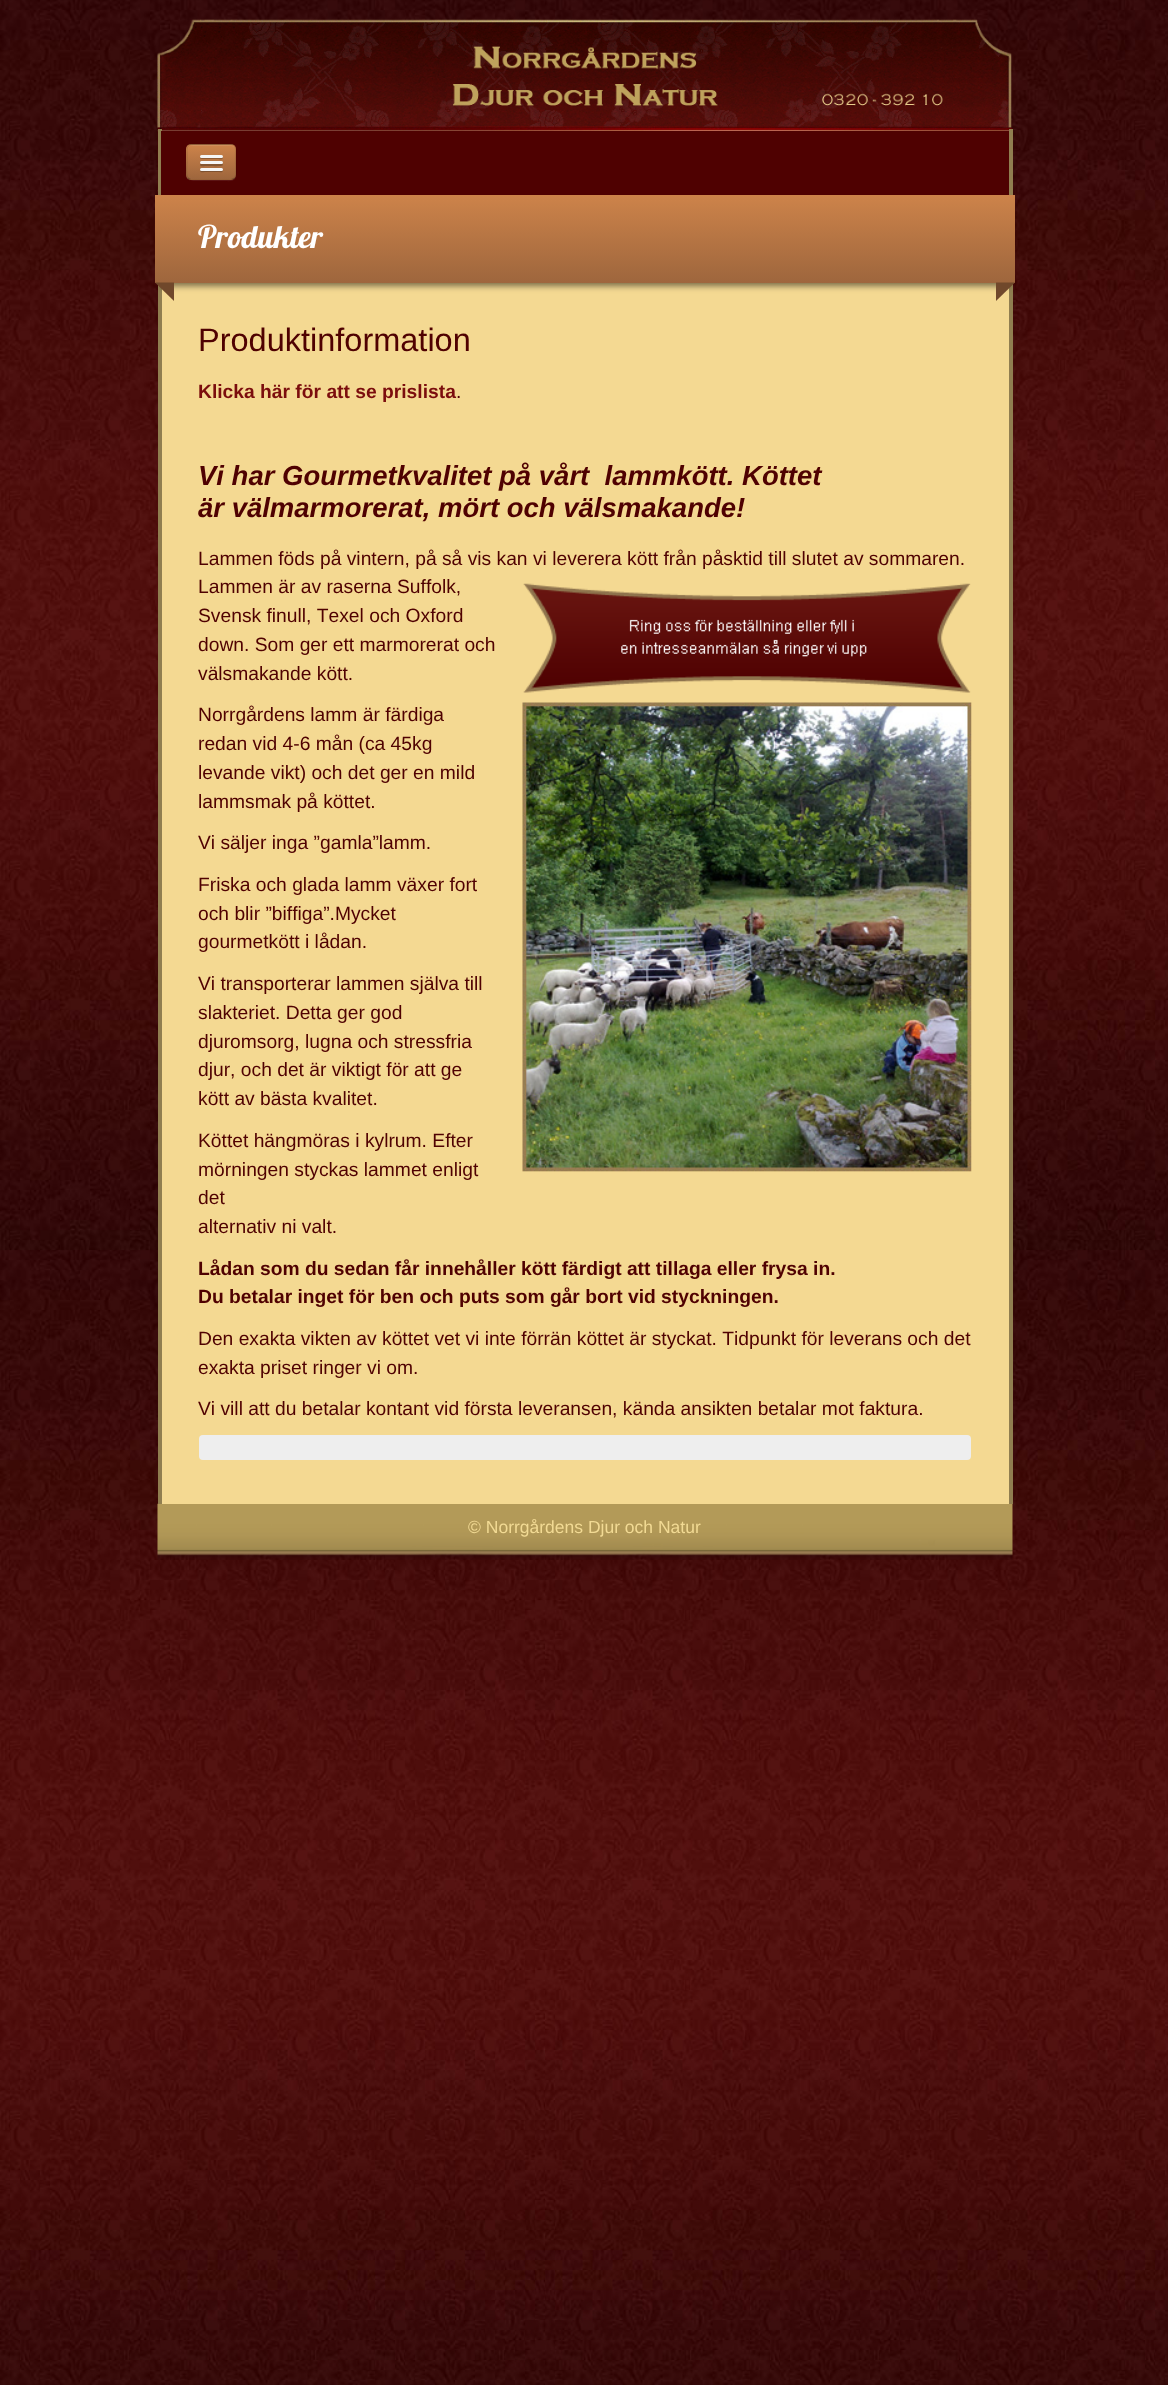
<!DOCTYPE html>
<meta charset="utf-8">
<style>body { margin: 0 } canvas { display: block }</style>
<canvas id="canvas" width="1168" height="2385"></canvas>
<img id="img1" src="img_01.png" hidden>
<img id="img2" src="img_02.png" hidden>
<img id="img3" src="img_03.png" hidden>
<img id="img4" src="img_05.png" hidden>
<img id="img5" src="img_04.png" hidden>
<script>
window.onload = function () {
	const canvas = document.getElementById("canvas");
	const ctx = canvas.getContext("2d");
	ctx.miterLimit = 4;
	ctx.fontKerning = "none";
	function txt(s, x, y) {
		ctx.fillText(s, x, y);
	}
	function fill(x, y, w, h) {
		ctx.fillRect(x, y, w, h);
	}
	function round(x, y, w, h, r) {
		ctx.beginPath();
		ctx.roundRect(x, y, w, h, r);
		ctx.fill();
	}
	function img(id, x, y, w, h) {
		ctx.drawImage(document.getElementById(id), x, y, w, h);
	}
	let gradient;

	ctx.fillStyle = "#FFFFFF";
	fill(0, 0, 1168, 2385);
	img("img1", 0, 0, 1168, 2385);
	img("img2", 157, 19, 855, 109);
	img("img3", 157, 127, 856, 68);
	ctx.fillStyle = "#907E50";
	fill(1009, 129, 4, 66);
	fill(158, 129, 4, 66);
	ctx.fillStyle = "#4F0101";
	fill(161, 131, 848, 64);
	ctx.fillStyle = "#5C1414";
	ctx.beginPath();
	ctx.moveTo(186, 148);
	ctx.lineTo(186, 167);
	ctx.bezierCurveTo(186, 180, 185, 181, 198, 181);
	ctx.lineTo(224, 181);
	ctx.bezierCurveTo(227, 181, 233, 182, 235, 179);
	ctx.lineTo(236, 177);
	ctx.bezierCurveTo(234, 181, 228, 180, 225, 180);
	ctx.lineTo(198, 180);
	ctx.bezierCurveTo(188, 180, 186, 181, 186, 171);
	ctx.closePath();
	ctx.fill();
	ctx.save();
	ctx.beginPath();
	ctx.roundRect(186, 144, 50, 36, 5);
	ctx.clip();
	gradient = ctx.createLinearGradient(211, 111, 211, 145);
	gradient.addColorStop(0, "#CD834A");
	gradient.addColorStop(1, "#9E663D");
	ctx.fillStyle = gradient;
	fill(186, 144, 50, 1);
	gradient = ctx.createLinearGradient(211, 145, 211, 179);
	gradient.addColorStop(0, "#CD834A");
	gradient.addColorStop(1, "#9E663D");
	ctx.fillStyle = gradient;
	fill(186, 145, 50, 34);
	gradient = ctx.createLinearGradient(211, 179, 211, 213);
	gradient.addColorStop(0, "#CD834A");
	gradient.addColorStop(1, "#9E663D");
	ctx.fillStyle = gradient;
	fill(186, 179, 50, 1);
	ctx.restore();
	ctx.fillStyle = "#D18F5C";
	ctx.beginPath();
	ctx.moveTo(191, 146);
	ctx.lineTo(231, 146);
	ctx.bezierCurveTo(233, 146, 235, 148, 235, 150);
	ctx.bezierCurveTo(235, 144, 229, 145, 224, 145);
	ctx.lineTo(198, 145);
	ctx.bezierCurveTo(194, 145, 188, 144, 188, 150);
	ctx.bezierCurveTo(188, 148, 189, 146, 191, 146);
	ctx.closePath();
	ctx.fill();
	ctx.beginPath();
	ctx.moveTo(234.5, 178);
	ctx.bezierCurveTo(233.5, 179, 232.5, 179.5, 231, 179.5);
	ctx.lineTo(191, 179.5);
	ctx.bezierCurveTo(190, 179.5, 189, 179, 188, 178);
	ctx.strokeStyle = "rgba(0, 0, 0, 0.25)";
	ctx.lineWidth = 1.2;
	ctx.stroke();
	ctx.beginPath();
	ctx.moveTo(188, 178);
	ctx.bezierCurveTo(185.5, 175.5, 187, 165, 187, 162);
	ctx.lineTo(187, 153);
	ctx.bezierCurveTo(187, 150, 186, 145.5, 190.5, 144.5);
	ctx.lineTo(232, 144.5);
	ctx.bezierCurveTo(236.5, 145.5, 235.5, 150, 235.5, 153);
	ctx.lineTo(235.5, 162);
	ctx.bezierCurveTo(235.5, 165, 237, 175.5, 234.5, 178);
	ctx.strokeStyle = "rgba(0, 0, 0, 0.1)";
	ctx.stroke();
	ctx.fillStyle = "#8C5934";
	ctx.beginPath();
	ctx.moveTo(200, 157);
	ctx.bezierCurveTo(199, 159.5, 204, 159, 205, 159);
	ctx.lineTo(218, 159);
	ctx.bezierCurveTo(219, 159, 222.5, 160, 223, 158);
	ctx.bezierCurveTo(223, 157.5, 223, 156.5, 222.5, 156.5);
	ctx.bezierCurveTo(222.5, 157, 222, 157.5, 221, 157.5);
	ctx.lineTo(201, 157.5);
	ctx.bezierCurveTo(201, 157.5, 200.5, 157, 200, 157);
	ctx.closePath();
	ctx.fill();
	ctx.fillStyle = "#F5F5F5";
	round(200, 155, 23, 3, 1.5);
	ctx.fillStyle = "#855632";
	ctx.beginPath();
	ctx.moveTo(200.5, 163.5);
	ctx.lineTo(200, 165);
	ctx.bezierCurveTo(200.5, 167, 204, 166, 205, 166);
	ctx.lineTo(208, 166);
	ctx.bezierCurveTo(210, 166, 221.5, 166.5, 222.5, 165.5);
	ctx.bezierCurveTo(223, 165, 223, 164, 222.5, 163);
	ctx.lineTo(221.5, 163.5);
	ctx.bezierCurveTo(219.5, 164, 201, 164, 200.5, 163.5);
	ctx.closePath();
	ctx.fill();
	ctx.fillStyle = "#F5F5F5";
	round(200, 161, 23, 3, 1.5);
	ctx.fillStyle = "#7F5130";
	ctx.beginPath();
	ctx.moveTo(200.5, 169.5);
	ctx.lineTo(200, 171);
	ctx.bezierCurveTo(200.5, 173, 204, 172, 205, 172);
	ctx.lineTo(218, 172);
	ctx.bezierCurveTo(219.5, 172, 223, 173, 223, 170.5);
	ctx.lineTo(222.5, 169.5);
	ctx.lineTo(221.5, 170);
	ctx.bezierCurveTo(219.5, 170.5, 201, 170.5, 200.5, 169.5);
	ctx.closePath();
	ctx.fill();
	ctx.fillStyle = "#F5F5F5";
	round(200, 168, 23, 3, 1.5);
	img("img4", 157, 1503, 856, 57);
	ctx.fillStyle = "#F4D992";
	fill(162, 283, 847, 1221);
	ctx.fillStyle = "#907E50";
	fill(1009, 284, 4, 1220);
	fill(158, 285, 4, 1219);
	ctx.fillStyle = "rgba(0, 0, 0, 0.5)";
	ctx.filter = "blur(3px)";
	ctx.beginPath();
	ctx.rect(161, 211, 848, 75);
	ctx.fill();
	ctx.filter = "none";
	gradient = ctx.createLinearGradient(585, 195, 585, 283);
	gradient.addColorStop(0, "#CD834A");
	gradient.addColorStop(1, "#9E663D");
	ctx.fillStyle = gradient;
	fill(155, 195, 860, 88);
	ctx.fillStyle = "#70482B";
	ctx.beginPath();
	ctx.moveTo(174, 282.5);
	ctx.lineTo(174, 301);
	ctx.lineTo(155, 282.5);
	ctx.closePath();
	ctx.fill();
	ctx.beginPath();
	ctx.moveTo(996, 301);
	ctx.lineTo(996, 282.5);
	ctx.lineTo(1015, 282.5);
	ctx.closePath();
	ctx.fill();
	img("img5", 522, 583, 450, 589);
	ctx.fillStyle = "#EEEEEE";
	round(199, 1435, 772, 25, 4);
	ctx.font = "31.5px Lobster";
	ctx.fillStyle = "#FFFFFF";
	txt("Produkter", 198, 248);
	ctx.font = "32.5px Liberation Sans";
	ctx.fillStyle = "#4F0101";
	txt("Produktinformation", 198, 351);
	ctx.font = "bold 19.25px Liberation Sans";
	ctx.fillStyle = "#7B0D0D";
	txt("Klicka här för att se prislista", 198, 398);
	ctx.font = "19.25px Liberation Sans";
	ctx.fillStyle = "#4F0101";
	txt(".", 456, 398);
	ctx.font = "italic bold 27.5px Liberation Sans";
	txt("Vi har Gourmetkvalitet på vårt  lammkött. Köttet", 198, 485);
	txt("är välmarmorerat, mört och välsmakande!", 198, 517);
	ctx.font = "19.25px Liberation Sans";
	txt("Lammen föds på vintern, på så vis kan vi leverera kött från påsktid till slutet av sommaren.", 198, 565);
	txt("Lammen är av raserna Suffolk,", 198, 593);
	txt("Svensk finull, Texel och Oxford", 198, 622);
	txt("down. Som ger ett marmorerat och", 198, 651);
	txt("välsmakande kött.", 198, 680);
	txt("Norrgårdens lamm är färdiga", 198, 721);
	txt("redan vid 4-6 mån (ca 45kg", 198, 750);
	txt("levande vikt) och det ger en mild", 198, 779);
	txt("lammsmak på köttet.", 198, 808);
	txt("Vi säljer inga ”gamla”lamm.", 198, 849);
	txt("Friska och glada lamm växer fort", 198, 891);
	txt("och blir ”biffiga”.Mycket", 198, 920);
	txt("gourmetkött i lådan.", 198, 948);
	txt("Vi transporterar lammen själva till", 198, 990);
	txt("slakteriet. Detta ger god", 198, 1019);
	txt("djuromsorg, lugna och stressfria", 198, 1048);
	txt("djur, och det är viktigt för att ge", 198, 1076);
	txt("kött av bästa kvalitet.", 198, 1105);
	txt("Köttet hängmöras i kylrum. Efter", 198, 1147);
	txt("mörningen styckas lammet enligt", 198, 1176);
	txt("det", 198, 1204);
	txt("alternativ ni valt.", 198, 1233);
	ctx.font = "bold 19.25px Liberation Sans";
	txt("Lådan som du sedan får innehåller kött färdigt att tillaga eller frysa in.", 198, 1275);
	txt("Du betalar inget för ben och puts som går bort vid styckningen.", 198, 1303);
	ctx.font = "19.25px Liberation Sans";
	txt("Den exakta vikten av köttet vet vi inte förrän köttet är styckat. Tidpunkt för leverans och det", 198, 1345);
	txt("exakta priset ringer vi om.", 198, 1374);
	txt("Vi vill att du betalar kontant vid första leveransen, kända ansikten betalar mot faktura.", 198, 1415);
	ctx.font = "17.5px Liberation Sans";
	ctx.fillStyle = "#F2DA94";
	txt("© Norrgårdens Djur och Natur", 468, 1533);
};
</script>
